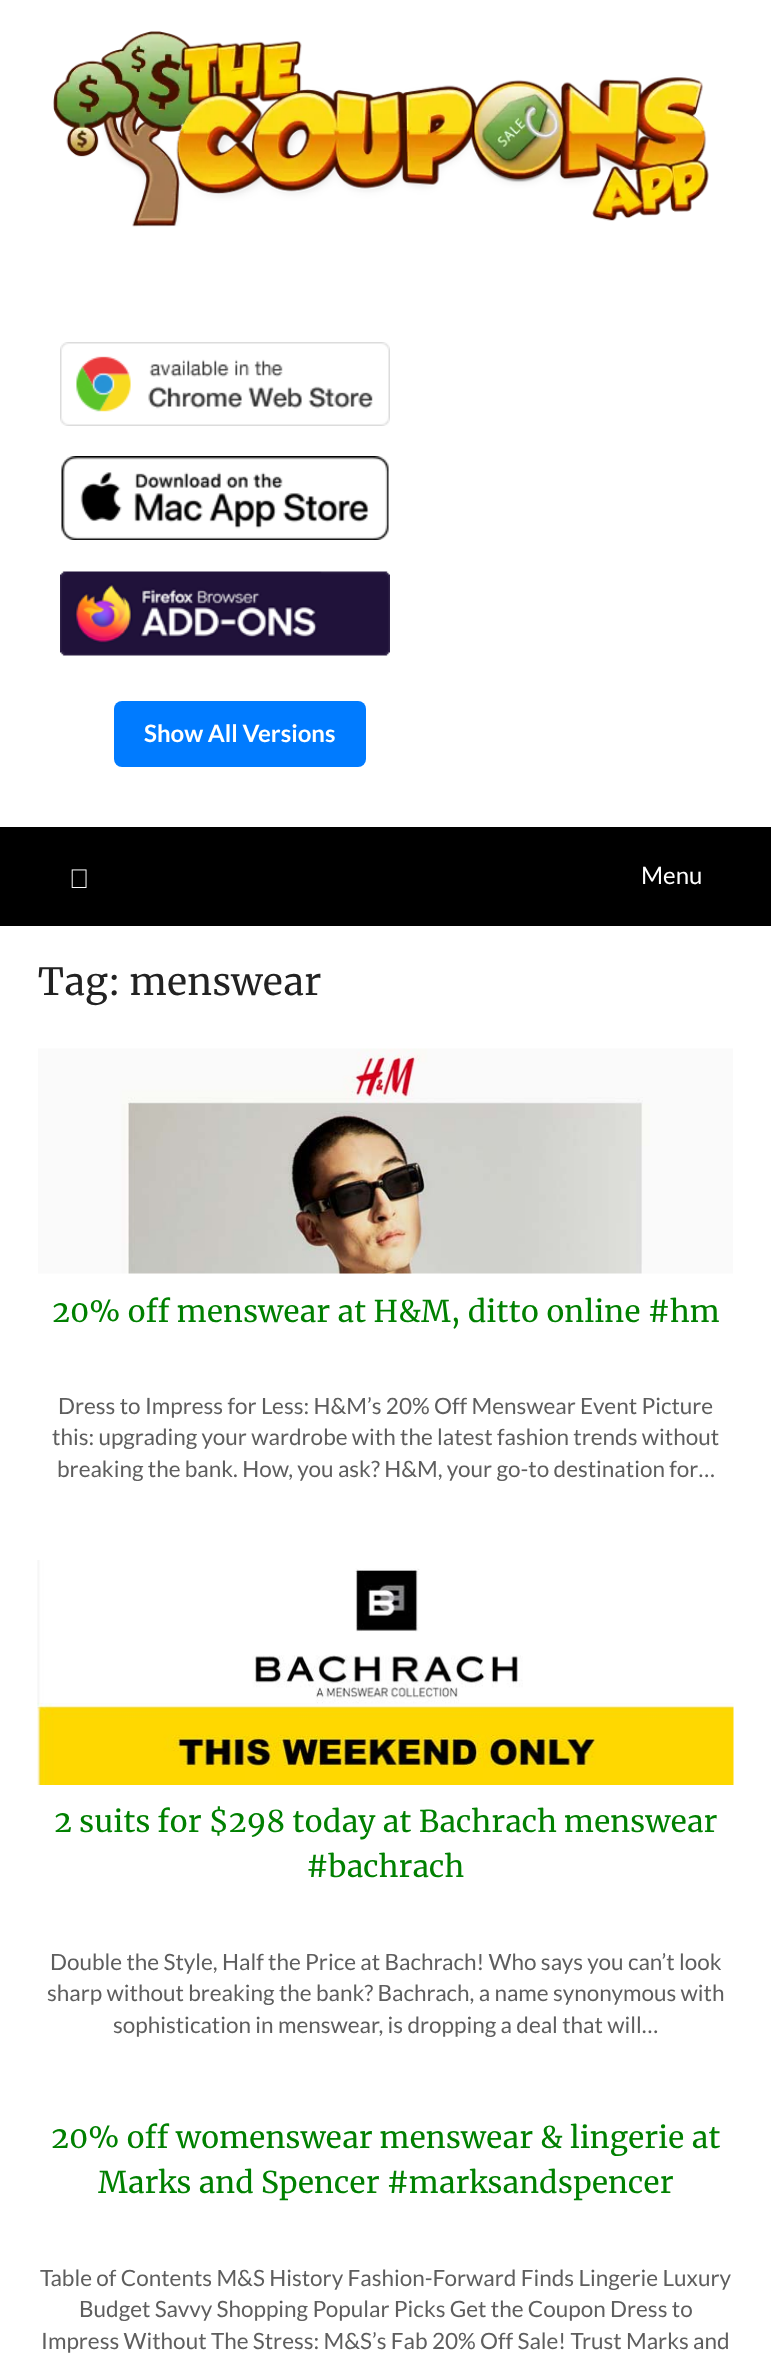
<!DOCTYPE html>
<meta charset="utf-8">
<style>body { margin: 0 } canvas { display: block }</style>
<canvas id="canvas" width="771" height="2368"></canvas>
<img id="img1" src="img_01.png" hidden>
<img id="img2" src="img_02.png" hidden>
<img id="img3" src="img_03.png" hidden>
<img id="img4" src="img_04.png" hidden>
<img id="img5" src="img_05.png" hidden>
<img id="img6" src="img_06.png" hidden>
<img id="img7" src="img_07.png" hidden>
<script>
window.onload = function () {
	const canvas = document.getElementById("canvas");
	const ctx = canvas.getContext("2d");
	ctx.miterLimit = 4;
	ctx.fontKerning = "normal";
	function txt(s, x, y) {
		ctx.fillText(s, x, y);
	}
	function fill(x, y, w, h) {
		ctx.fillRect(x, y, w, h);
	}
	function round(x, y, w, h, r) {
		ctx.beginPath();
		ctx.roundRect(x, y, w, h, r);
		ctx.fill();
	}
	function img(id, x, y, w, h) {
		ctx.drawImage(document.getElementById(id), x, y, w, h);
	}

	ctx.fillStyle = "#FFFFFF";
	fill(0, 0, 771, 2368);
	img("img1", 53, 31, 656, 196);
	img("img2", 60, 342, 330, 84);
	img("img3", 61, 456, 328, 84);
	img("img4", 60, 571, 330, 85);
	ctx.fillStyle = "#007BFF";
	round(114, 701, 252, 66, 8);
	ctx.fillStyle = "#000000";
	fill(0, 827, 771, 99);
	img("img5", 71, 869, 16, 19);
	img("img6", 38, 1048, 695, 226);
	img("img7", 37, 1560, 697, 225);
	ctx.font = "bold 24px Lato";
	ctx.fillStyle = "#FFFFFF";
	txt("Show All Versions", 144, 742);
	ctx.font = "24px Lato";
	txt("Menu", 641, 884);
	ctx.font = "37.5px Merriweather";
	ctx.fillStyle = "#222222";
	txt("Tag: menswear", 38, 995);
	ctx.font = "30px Merriweather";
	ctx.fillStyle = "#008000";
	txt("20% off menswear at H&M, ditto online #hm", 52, 1322);
	ctx.font = "22.5px Lato";
	ctx.fillStyle = "#5E5E5E";
	txt("Dress to Impress for Less: H&M’s 20% Off Menswear Event Picture", 58, 1414);
	txt("this: upgrading your wardrobe with the latest fashion trends without", 52, 1445);
	txt("breaking the bank. How, you ask? H&M, your go-to destination for…", 57, 1477);
	ctx.font = "30px Merriweather";
	ctx.fillStyle = "#008000";
	txt("2 suits for $298 today at Bachrach menswear", 54, 1832);
	txt("#bachrach", 306, 1877);
	ctx.font = "22.5px Lato";
	ctx.fillStyle = "#5E5E5E";
	txt("Double the Style, Half the Price at Bachrach! Who says you can’t look", 50, 1970);
	txt("sharp without breaking the bank? Bachrach, a name synonymous with", 47, 2001);
	txt("sophistication in menswear, is dropping a deal that will…", 113, 2033);
	ctx.font = "30px Merriweather";
	ctx.fillStyle = "#008000";
	txt("20% off womenswear menswear & lingerie at", 51, 2148);
	txt("Marks and Spencer #marksandspencer", 98, 2193);
	ctx.font = "22.5px Lato";
	ctx.fillStyle = "#5E5E5E";
	txt("Table of Contents M&S History Fashion-Forward Finds Lingerie Luxury", 40, 2286);
	txt("Budget Savvy Shopping Popular Picks Get the Coupon Dress to", 79, 2317);
	txt("Impress Without The Stress: M&S’s Fab 20% Off Sale! Trust Marks and", 41, 2349);
};
</script>
